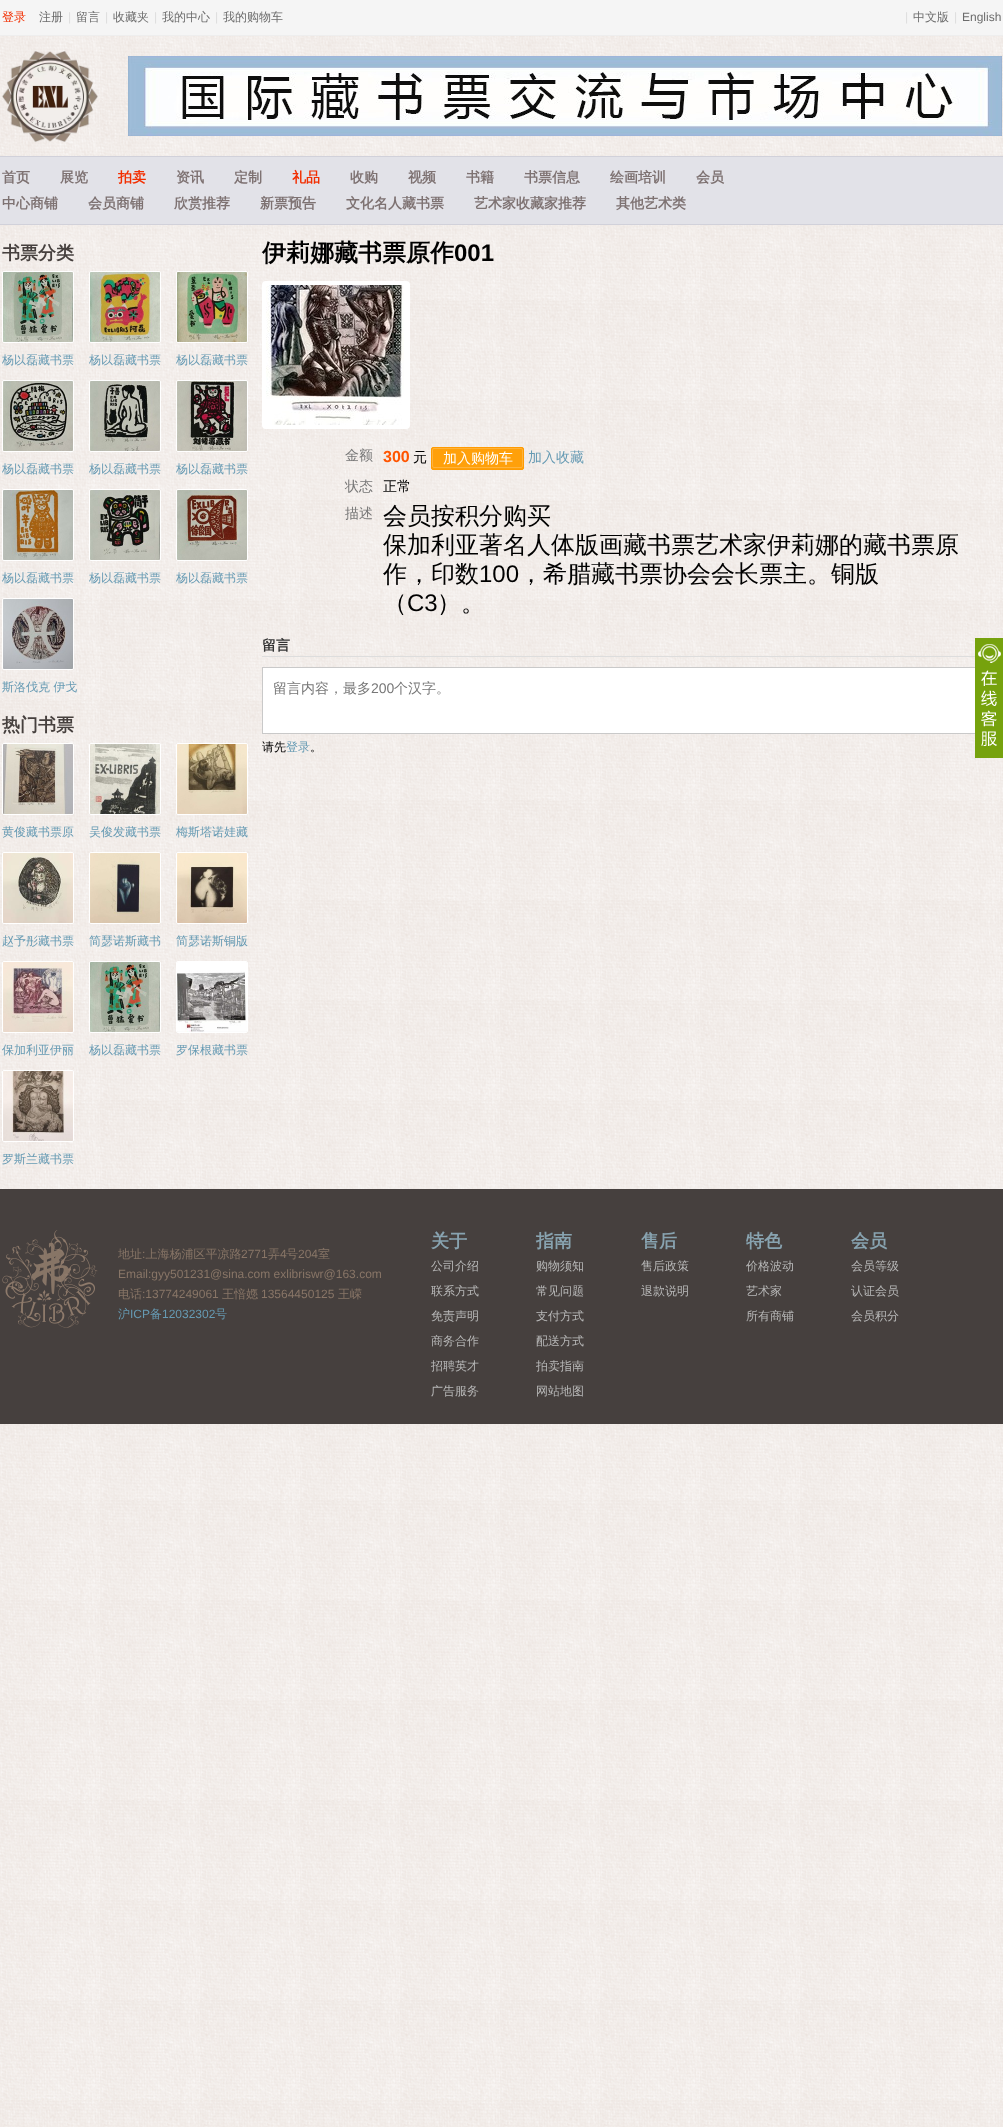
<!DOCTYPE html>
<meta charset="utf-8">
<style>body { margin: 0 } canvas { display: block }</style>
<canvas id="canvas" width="1003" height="2127"></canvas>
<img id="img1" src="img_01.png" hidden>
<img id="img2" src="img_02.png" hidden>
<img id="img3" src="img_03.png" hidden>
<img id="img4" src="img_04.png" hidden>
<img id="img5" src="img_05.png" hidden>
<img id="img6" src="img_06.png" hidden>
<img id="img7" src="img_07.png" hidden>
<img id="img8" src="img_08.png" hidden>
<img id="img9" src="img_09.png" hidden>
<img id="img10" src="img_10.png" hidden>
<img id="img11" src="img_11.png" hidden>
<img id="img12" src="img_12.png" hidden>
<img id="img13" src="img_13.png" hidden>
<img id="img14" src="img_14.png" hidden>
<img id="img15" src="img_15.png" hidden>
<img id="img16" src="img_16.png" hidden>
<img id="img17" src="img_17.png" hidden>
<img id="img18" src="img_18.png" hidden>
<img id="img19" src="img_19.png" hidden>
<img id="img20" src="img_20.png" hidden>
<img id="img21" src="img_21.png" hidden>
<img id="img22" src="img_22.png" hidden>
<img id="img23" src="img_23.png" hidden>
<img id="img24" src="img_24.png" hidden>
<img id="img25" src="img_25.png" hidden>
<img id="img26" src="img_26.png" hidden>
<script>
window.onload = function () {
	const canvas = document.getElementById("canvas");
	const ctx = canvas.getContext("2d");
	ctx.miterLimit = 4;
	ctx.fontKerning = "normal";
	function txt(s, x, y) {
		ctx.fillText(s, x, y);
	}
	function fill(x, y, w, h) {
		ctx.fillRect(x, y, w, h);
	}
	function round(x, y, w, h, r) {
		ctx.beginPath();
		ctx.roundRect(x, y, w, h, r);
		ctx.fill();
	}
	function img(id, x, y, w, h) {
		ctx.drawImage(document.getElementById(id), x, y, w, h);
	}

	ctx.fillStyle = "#FFFFFF";
	fill(0, 0, 1003, 2127);
	img("img1", 0, 36, 1003, 2091);
	ctx.fillStyle = "#F5F5F5";
	fill(0, 0, 1003, 35);
	ctx.fillStyle = "#EEEEEE";
	fill(0, 35, 1003, 1);
	img("img2", 2, 51, 96, 91);
	img("img3", 128, 56, 874, 80);
	ctx.fillStyle = "#E2E2E8";
	fill(0, 157, 1003, 67);
	ctx.fillStyle = "#D1D1DA";
	fill(0, 156, 1003, 1);
	fill(0, 224, 1003, 1);
	ctx.beginPath();
	ctx.roundRect(2.5, 271.5, 71, 71, 1.5);
	ctx.strokeStyle = "#FFFFFF";
	ctx.stroke();
	img("img4", 3, 272, 70, 70);
	ctx.beginPath();
	ctx.roundRect(89.5, 271.5, 71, 71, 1.5);
	ctx.stroke();
	img("img5", 90, 272, 70, 70);
	ctx.beginPath();
	ctx.roundRect(176.5, 271.5, 71, 71, 1.5);
	ctx.stroke();
	img("img6", 177, 272, 70, 70);
	ctx.beginPath();
	ctx.roundRect(2.5, 380.5, 71, 71, 1.5);
	ctx.stroke();
	img("img7", 3, 381, 70, 70);
	ctx.beginPath();
	ctx.roundRect(89.5, 380.5, 71, 71, 1.5);
	ctx.stroke();
	img("img8", 90, 381, 70, 70);
	ctx.beginPath();
	ctx.roundRect(176.5, 380.5, 71, 71, 1.5);
	ctx.stroke();
	img("img9", 177, 381, 70, 70);
	ctx.beginPath();
	ctx.roundRect(2.5, 489.5, 71, 71, 1.5);
	ctx.stroke();
	img("img10", 3, 490, 70, 70);
	ctx.beginPath();
	ctx.roundRect(89.5, 489.5, 71, 71, 1.5);
	ctx.stroke();
	img("img11", 90, 490, 70, 70);
	ctx.beginPath();
	ctx.roundRect(176.5, 489.5, 71, 71, 1.5);
	ctx.stroke();
	img("img12", 177, 490, 70, 70);
	ctx.beginPath();
	ctx.roundRect(2.5, 598.5, 71, 71, 1.5);
	ctx.stroke();
	img("img13", 3, 599, 70, 70);
	ctx.beginPath();
	ctx.roundRect(2.5, 743.5, 71, 71, 1.5);
	ctx.stroke();
	img("img14", 3, 744, 70, 70);
	ctx.beginPath();
	ctx.roundRect(89.5, 743.5, 71, 71, 1.5);
	ctx.stroke();
	img("img15", 90, 744, 70, 70);
	ctx.beginPath();
	ctx.roundRect(176.5, 743.5, 71, 71, 1.5);
	ctx.stroke();
	img("img16", 177, 744, 70, 70);
	ctx.beginPath();
	ctx.roundRect(2.5, 852.5, 71, 71, 1.5);
	ctx.stroke();
	img("img17", 3, 853, 70, 70);
	ctx.beginPath();
	ctx.roundRect(89.5, 852.5, 71, 71, 1.5);
	ctx.stroke();
	img("img18", 90, 853, 70, 70);
	ctx.beginPath();
	ctx.roundRect(176.5, 852.5, 71, 71, 1.5);
	ctx.stroke();
	img("img19", 177, 853, 70, 70);
	ctx.beginPath();
	ctx.roundRect(2.5, 961.5, 71, 71, 1.5);
	ctx.stroke();
	img("img20", 3, 962, 70, 70);
	ctx.beginPath();
	ctx.roundRect(89.5, 961.5, 71, 71, 1.5);
	ctx.stroke();
	img("img21", 90, 962, 70, 70);
	ctx.beginPath();
	ctx.roundRect(176.5, 961.5, 71, 71, 1.5);
	ctx.stroke();
	img("img22", 177, 962, 70, 70);
	ctx.beginPath();
	ctx.roundRect(2.5, 1070.5, 71, 71, 1.5);
	ctx.stroke();
	img("img23", 3, 1071, 70, 70);
	ctx.fillStyle = "#FFFFFF";
	round(262, 281, 148, 148, 4);
	img("img24", 266, 285, 138, 140);
	ctx.fillStyle = "#FFA00A";
	ctx.beginPath();
	ctx.roundRect(431.5, 447.5, 92, 22, 1.5);
	ctx.fill();
	ctx.strokeStyle = "#FF9B01";
	ctx.stroke();
	ctx.beginPath();
	ctx.roundRect(432.5, 448.5, 90, 19, 1.5);
	ctx.strokeStyle = "#FFB33B";
	ctx.stroke();
	ctx.fillStyle = "#DDDDDD";
	fill(262, 656, 713, 1);
	ctx.fillStyle = "#FFFFFF";
	fill(263, 668, 712, 65);
	ctx.strokeStyle = "#C9C9C9";
	ctx.strokeRect(262.5, 667.5, 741, 66);
	img("img25", 975, 638, 28, 120);
	ctx.fillStyle = "#46403E";
	fill(0, 1189, 1003, 235);
	img("img26", 2, 1230, 96, 98);
	ctx.font = "500 12px WenQuanYi Zen Hei";
	ctx.fillStyle = "#F22E00";
	txt("登录", 2, 21);
	ctx.fillStyle = "#6C6C6C";
	txt("注册", 39, 21);
	ctx.font = "12px Liberation Sans";
	ctx.fillStyle = "#DDDDDD";
	txt("|", 68, 21);
	ctx.font = "500 12px WenQuanYi Zen Hei";
	ctx.fillStyle = "#6C6C6C";
	txt("留言", 76, 21);
	ctx.font = "12px Liberation Sans";
	ctx.fillStyle = "#DDDDDD";
	txt("|", 105, 21);
	ctx.font = "500 12px WenQuanYi Zen Hei";
	ctx.fillStyle = "#6C6C6C";
	txt("收藏夹", 113, 21);
	ctx.font = "12px Liberation Sans";
	ctx.fillStyle = "#DDDDDD";
	txt("|", 154, 21);
	ctx.font = "500 12px WenQuanYi Zen Hei";
	ctx.fillStyle = "#6C6C6C";
	txt("我的中心", 162, 21);
	ctx.font = "12px Liberation Sans";
	ctx.fillStyle = "#DDDDDD";
	txt("|", 215, 21);
	ctx.font = "500 12px WenQuanYi Zen Hei";
	ctx.fillStyle = "#6C6C6C";
	txt("我的购物车", 223, 21);
	ctx.font = "12px Liberation Sans";
	ctx.fillStyle = "#DDDDDD";
	txt("|", 905, 21);
	ctx.font = "500 12px WenQuanYi Zen Hei";
	ctx.fillStyle = "#6C6C6C";
	txt("中文版", 913, 21);
	ctx.font = "12px Liberation Sans";
	ctx.fillStyle = "#DDDDDD";
	txt("|", 954, 21);
	ctx.fillStyle = "#6C6C6C";
	txt("English", 962, 21);
	ctx.font = "bold 14px WenQuanYi Zen Hei";
	ctx.fillStyle = "#7E7272";
	txt("首页", 2, 182);
	txt("展览", 60, 182);
	ctx.fillStyle = "#F22E00";
	txt("拍卖", 118, 182);
	ctx.fillStyle = "#7E7272";
	txt("资讯", 176, 182);
	txt("定制", 234, 182);
	ctx.fillStyle = "#F22E00";
	txt("礼品", 292, 182);
	ctx.fillStyle = "#7E7272";
	txt("收购", 350, 182);
	txt("视频", 408, 182);
	txt("书籍", 466, 182);
	txt("书票信息", 524, 182);
	txt("绘画培训", 610, 182);
	txt("会员", 696, 182);
	txt("中心商铺", 2, 208);
	txt("会员商铺", 88, 208);
	txt("欣赏推荐", 174, 208);
	txt("新票预告", 260, 208);
	txt("文化名人藏书票", 346, 208);
	txt("艺术家收藏家推荐", 474, 208);
	txt("其他艺术类", 616, 208);
	ctx.font = "bold 18px WenQuanYi Zen Hei";
	ctx.fillStyle = "#46403E";
	txt("书票分类", 2, 259);
	ctx.save();
	ctx.beginPath();
	ctx.rect(2, 348, 80, 25);
	ctx.clip();
	ctx.font = "500 12px WenQuanYi Zen Hei";
	ctx.fillStyle = "#669AB3";
	txt("杨以磊藏书票", 2, 364);
	ctx.restore();
	ctx.save();
	ctx.beginPath();
	ctx.rect(89, 348, 80, 25);
	ctx.clip();
	ctx.font = "500 12px WenQuanYi Zen Hei";
	ctx.fillStyle = "#669AB3";
	txt("杨以磊藏书票", 89, 364);
	ctx.restore();
	ctx.save();
	ctx.beginPath();
	ctx.rect(176, 348, 76, 25);
	ctx.clip();
	ctx.font = "500 12px WenQuanYi Zen Hei";
	ctx.fillStyle = "#669AB3";
	txt("杨以磊藏书票", 176, 364);
	ctx.restore();
	ctx.save();
	ctx.beginPath();
	ctx.rect(2, 457, 80, 25);
	ctx.clip();
	ctx.font = "500 12px WenQuanYi Zen Hei";
	ctx.fillStyle = "#669AB3";
	txt("杨以磊藏书票", 2, 473);
	ctx.restore();
	ctx.save();
	ctx.beginPath();
	ctx.rect(89, 457, 80, 25);
	ctx.clip();
	ctx.font = "500 12px WenQuanYi Zen Hei";
	ctx.fillStyle = "#669AB3";
	txt("杨以磊藏书票", 89, 473);
	ctx.restore();
	ctx.save();
	ctx.beginPath();
	ctx.rect(176, 457, 76, 25);
	ctx.clip();
	ctx.font = "500 12px WenQuanYi Zen Hei";
	ctx.fillStyle = "#669AB3";
	txt("杨以磊藏书票", 176, 473);
	ctx.restore();
	ctx.save();
	ctx.beginPath();
	ctx.rect(2, 566, 80, 25);
	ctx.clip();
	ctx.font = "500 12px WenQuanYi Zen Hei";
	ctx.fillStyle = "#669AB3";
	txt("杨以磊藏书票", 2, 582);
	ctx.restore();
	ctx.save();
	ctx.beginPath();
	ctx.rect(89, 566, 80, 25);
	ctx.clip();
	ctx.font = "500 12px WenQuanYi Zen Hei";
	ctx.fillStyle = "#669AB3";
	txt("杨以磊藏书票", 89, 582);
	ctx.restore();
	ctx.save();
	ctx.beginPath();
	ctx.rect(176, 566, 76, 25);
	ctx.clip();
	ctx.font = "500 12px WenQuanYi Zen Hei";
	ctx.fillStyle = "#669AB3";
	txt("杨以磊藏书票", 176, 582);
	ctx.restore();
	ctx.font = "500 12px WenQuanYi Zen Hei";
	ctx.fillStyle = "#669AB3";
	txt("斯洛伐克 伊戈", 2, 691);
	ctx.font = "bold 18px WenQuanYi Zen Hei";
	ctx.fillStyle = "#46403E";
	txt("热门书票", 2, 731);
	ctx.font = "500 12px WenQuanYi Zen Hei";
	ctx.fillStyle = "#669AB3";
	txt("黄俊藏书票原", 2, 836);
	txt("吴俊发藏书票", 89, 836);
	ctx.save();
	ctx.beginPath();
	ctx.rect(176, 820, 76, 25);
	ctx.clip();
	txt("梅斯塔诺娃藏", 176, 836);
	ctx.restore();
	txt("赵予彤藏书票", 2, 945);
	txt("简瑟诺斯藏书", 89, 945);
	txt("简瑟诺斯铜版", 176, 945);
	txt("保加利亚伊丽", 2, 1054);
	ctx.save();
	ctx.beginPath();
	ctx.rect(89, 1038, 80, 25);
	ctx.clip();
	txt("杨以磊藏书票", 89, 1054);
	ctx.restore();
	txt("罗保根藏书票", 176, 1054);
	txt("罗斯兰藏书票", 2, 1163);
	ctx.font = "bold 24px WenQuanYi Zen Hei";
	ctx.fillStyle = "#000000";
	txt("伊莉娜藏书票原作", 262, 261);
	ctx.font = "bold 24px Liberation Sans";
	txt("001", 454, 261);
	ctx.font = "500 14px WenQuanYi Zen Hei";
	ctx.fillStyle = "#777777";
	txt("金额", 345, 460);
	ctx.font = "bold 16px Liberation Sans";
	ctx.fillStyle = "#FF5500";
	txt("300", 383, 462);
	ctx.font = "500 14px WenQuanYi Zen Hei";
	ctx.fillStyle = "#000000";
	txt("元", 413, 462);
	ctx.fillStyle = "#FFFFFF";
	txt("加入购物车", 443, 463);
	ctx.fillStyle = "#669AB3";
	txt("加入收藏", 528, 462);
	ctx.fillStyle = "#777777";
	txt("状态", 345, 491);
	ctx.fillStyle = "#000000";
	txt("正常", 383, 491);
	ctx.fillStyle = "#777777";
	txt("描述", 345, 518);
	ctx.font = "500 24px WenQuanYi Zen Hei";
	ctx.fillStyle = "#000000";
	txt("会员按积分购买", 383, 524);
	txt("保加利亚著名人体版画藏书票艺术家伊莉娜的藏书票原", 383, 553);
	txt("作，印数", 383, 582);
	ctx.font = "24px Liberation Sans";
	txt("100", 479, 582);
	ctx.font = "500 24px WenQuanYi Zen Hei";
	txt("，希腊藏书票协会会长票主。铜版", 519, 582);
	txt("（", 383, 611);
	ctx.font = "24px Liberation Sans";
	txt("C3", 407, 611);
	ctx.font = "500 24px WenQuanYi Zen Hei";
	txt("）。", 437, 611);
	ctx.font = "bold 14px WenQuanYi Zen Hei";
	ctx.fillStyle = "#333333";
	txt("留言", 262, 650);
	ctx.font = "500 14px WenQuanYi Zen Hei";
	ctx.fillStyle = "#777777";
	txt("留言内容，最多", 273, 693);
	ctx.font = "14px Liberation Sans";
	txt("200", 371, 693);
	ctx.font = "500 14px WenQuanYi Zen Hei";
	txt("个汉字。", 394, 693);
	ctx.font = "500 12px WenQuanYi Zen Hei";
	ctx.fillStyle = "#000000";
	txt("请先", 262, 751);
	ctx.fillStyle = "#669AB3";
	txt("登录", 286, 751);
	ctx.fillStyle = "#000000";
	txt("。", 310, 751);
	ctx.fillStyle = "#887567";
	txt("地址 上海杨浦区平凉路", 118, 1258);
	ctx.font = "12px Liberation Sans";
	txt("2771", 241, 1258);
	ctx.font = "500 12px WenQuanYi Zen Hei";
	txt("弄", 268, 1258);
	ctx.font = "12px Liberation Sans";
	txt("4", 280, 1258);
	ctx.font = "500 12px WenQuanYi Zen Hei";
	txt("号", 286, 1258);
	ctx.font = "12px Liberation Sans";
	txt("204", 298, 1258);
	ctx.font = "500 12px WenQuanYi Zen Hei";
	txt("室", 318, 1258);
	ctx.font = "12px Liberation Sans";
	txt(":", 142, 1258);
	txt("Email:gyy501231@sina.com exlibriswr@163.com", 118, 1278);
	ctx.font = "500 12px WenQuanYi Zen Hei";
	txt("电话", 118, 1298);
	ctx.font = "12px Liberation Sans";
	txt(":13774249061", 142, 1298);
	ctx.font = "500 12px WenQuanYi Zen Hei";
	txt("王愔嫕", 222, 1298);
	ctx.font = "12px Liberation Sans";
	txt("13564450125", 261, 1298);
	ctx.font = "500 12px WenQuanYi Zen Hei";
	txt("王嵘", 338, 1298);
	ctx.fillStyle = "#669AB3";
	txt("沪", 118, 1318);
	ctx.font = "12px Liberation Sans";
	txt("ICP", 130, 1318);
	ctx.font = "500 12px WenQuanYi Zen Hei";
	txt("备", 150, 1318);
	ctx.font = "12px Liberation Sans";
	txt("12032302", 162, 1318);
	ctx.font = "500 12px WenQuanYi Zen Hei";
	txt("号", 215, 1318);
	ctx.font = "bold 18px WenQuanYi Zen Hei";
	ctx.fillStyle = "#88A3B0";
	txt("关于", 431, 1247);
	ctx.font = "500 12px WenQuanYi Zen Hei";
	ctx.fillStyle = "#B8B8B8";
	txt("公司介绍", 431, 1270);
	txt("联系方式", 431, 1295);
	txt("免责声明", 431, 1320);
	txt("商务合作", 431, 1345);
	txt("招聘英才", 431, 1370);
	txt("广告服务", 431, 1395);
	ctx.font = "bold 18px WenQuanYi Zen Hei";
	ctx.fillStyle = "#88A3B0";
	txt("指南", 536, 1247);
	ctx.font = "500 12px WenQuanYi Zen Hei";
	ctx.fillStyle = "#B8B8B8";
	txt("购物须知", 536, 1270);
	txt("常见问题", 536, 1295);
	txt("支付方式", 536, 1320);
	txt("配送方式", 536, 1345);
	txt("拍卖指南", 536, 1370);
	txt("网站地图", 536, 1395);
	ctx.font = "bold 18px WenQuanYi Zen Hei";
	ctx.fillStyle = "#88A3B0";
	txt("售后", 641, 1247);
	ctx.font = "500 12px WenQuanYi Zen Hei";
	ctx.fillStyle = "#B8B8B8";
	txt("售后政策", 641, 1270);
	txt("退款说明", 641, 1295);
	ctx.font = "bold 18px WenQuanYi Zen Hei";
	ctx.fillStyle = "#88A3B0";
	txt("特色", 746, 1247);
	ctx.font = "500 12px WenQuanYi Zen Hei";
	ctx.fillStyle = "#B8B8B8";
	txt("价格波动", 746, 1270);
	txt("艺术家", 746, 1295);
	txt("所有商铺", 746, 1320);
	ctx.font = "bold 18px WenQuanYi Zen Hei";
	ctx.fillStyle = "#88A3B0";
	txt("会员", 851, 1247);
	ctx.font = "500 12px WenQuanYi Zen Hei";
	ctx.fillStyle = "#B8B8B8";
	txt("会员等级", 851, 1270);
	txt("认证会员", 851, 1295);
	txt("会员积分", 851, 1320);
};
</script>
